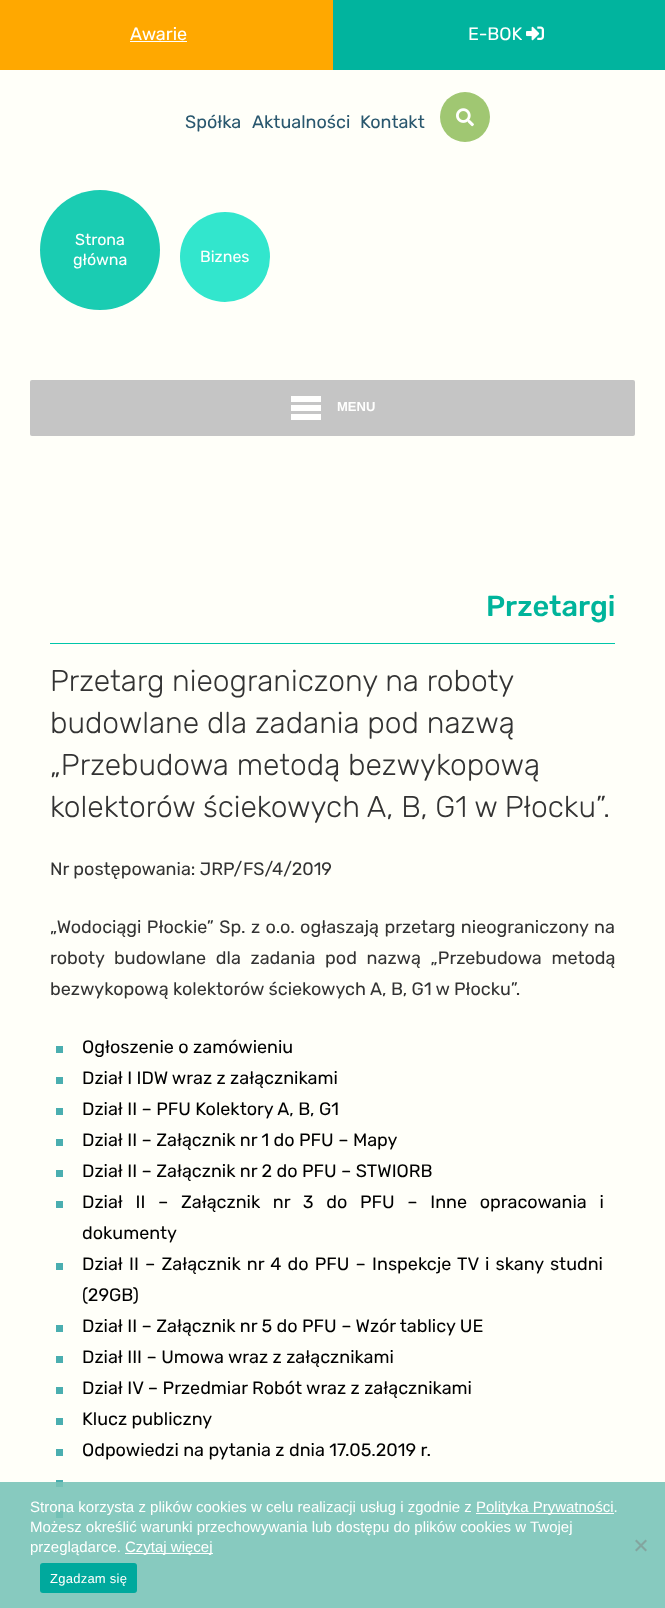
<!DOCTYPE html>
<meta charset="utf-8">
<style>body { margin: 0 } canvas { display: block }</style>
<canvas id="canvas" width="665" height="1608"></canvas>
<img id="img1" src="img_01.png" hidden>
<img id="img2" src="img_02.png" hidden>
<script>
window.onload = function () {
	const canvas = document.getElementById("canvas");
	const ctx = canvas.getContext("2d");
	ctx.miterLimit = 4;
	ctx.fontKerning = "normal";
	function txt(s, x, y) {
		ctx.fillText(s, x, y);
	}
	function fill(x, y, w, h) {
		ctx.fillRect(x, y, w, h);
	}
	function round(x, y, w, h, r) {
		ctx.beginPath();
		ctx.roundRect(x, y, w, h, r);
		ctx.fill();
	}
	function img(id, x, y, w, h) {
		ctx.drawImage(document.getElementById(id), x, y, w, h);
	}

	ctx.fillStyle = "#FFFFF9";
	fill(0, 0, 665, 1608);
	ctx.fillStyle = "#FFA800";
	fill(0, 0, 333, 70);
	ctx.fillStyle = "#FFFFFF";
	fill(130, 41, 57, 1);
	ctx.fillStyle = "#01B49E";
	fill(333, 0, 332, 70);
	img("img1", 526, 26, 18, 15);
	ctx.fillStyle = "#A0C772";
	ctx.beginPath();
	ctx.arc(465, 117, 25, 0, Math.PI * 2);
	ctx.fill();
	img("img2", 456, 108, 18, 19);
	ctx.fillStyle = "#1ACCB2";
	ctx.beginPath();
	ctx.arc(100, 250, 60, 0, Math.PI * 2);
	ctx.fill();
	ctx.fillStyle = "#32E6CD";
	ctx.beginPath();
	ctx.arc(225, 257, 45, 0, Math.PI * 2);
	ctx.fill();
	ctx.fillStyle = "#C5C5C5";
	round(30, 380, 605, 56, 2);
	ctx.fillStyle = "#FFFFFE";
	fill(291, 396, 30, 6);
	fill(291, 405, 30, 6);
	fill(291, 414, 30, 6);
	ctx.fillStyle = "#00C6AA";
	fill(50, 643, 565, 1);
	ctx.fillStyle = "#4AAEB0";
	fill(56, 1046, 7, 7);
	fill(56, 1077, 7, 7);
	fill(56, 1108, 7, 7);
	fill(56, 1139, 7, 7);
	fill(56, 1170, 7, 7);
	fill(56, 1201, 7, 7);
	fill(56, 1263, 7, 7);
	fill(56, 1325, 7, 7);
	fill(56, 1356, 7, 7);
	fill(56, 1387, 7, 7);
	fill(56, 1418, 7, 7);
	fill(56, 1449, 7, 7);
	fill(56, 1480, 7, 7);
	fill(56, 1511, 7, 7);
	ctx.fillStyle = "rgba(120, 195, 183, 0.89)";
	fill(0, 1482, 665, 126);
	ctx.fillStyle = "#FFFFFF";
	fill(476, 1513, 138, 1);
	fill(125, 1553, 88, 1);
	ctx.fillStyle = "#83A59F";
	ctx.beginPath();
	ctx.moveTo(645.5, 1539.5);
	ctx.lineTo(647, 1541);
	ctx.lineTo(636.5, 1551.5);
	ctx.lineTo(635, 1550);
	ctx.closePath();
	ctx.fill();
	ctx.beginPath();
	ctx.moveTo(635, 1541);
	ctx.lineTo(636.5, 1539.5);
	ctx.lineTo(647, 1550);
	ctx.lineTo(645.5, 1551.5);
	ctx.closePath();
	ctx.fill();
	ctx.fillStyle = "#00A99D";
	round(40, 1563, 97, 30, 3);
	ctx.font = "18px Rubik";
	ctx.fillStyle = "#FFFFFE";
	txt("Awarie", 130, 40);
	txt("E-BOK", 468, 40);
	ctx.fillStyle = "#29576E";
	txt("Spółka", 185, 128);
	txt("Aktualności", 252, 128);
	txt("Kontakt", 360, 128);
	ctx.font = "16px Rubik";
	ctx.fillStyle = "#FFFFFE";
	txt("Strona", 75, 245);
	txt("główna", 73, 265);
	txt("Biznes", 200, 262);
	ctx.font = "bold 13px Liberation Sans";
	txt("MENU", 337, 411);
	ctx.font = "500 29px Rubik";
	ctx.fillStyle = "#00B49B";
	txt("Przetargi", 486, 616);
	ctx.font = "300 30px Rubik";
	ctx.fillStyle = "#333333";
	txt("Przetarg nieograniczony na roboty", 50, 691);
	txt("budowlane dla zadania pod nazwą", 50, 733);
	txt("„Przebudowa metodą bezwykopową", 50, 775);
	txt("kolektorów ściekowych A, B, G1 w Płocku”.", 50, 817);
	ctx.font = "18px Rubik";
	txt("Nr postępowania: JRP/FS/4/2019", 50, 875);
	ctx.wordSpacing = "1px";
	txt("„Wodociągi Płockie” Sp. z o.o. ogłaszają przetarg nieograniczony na", 50, 933);
	ctx.wordSpacing = "5.25px";
	txt("roboty budowlane dla zadania pod nazwą „Przebudowa metodą", 50, 964);
	ctx.wordSpacing = "0px";
	txt("bezwykopową kolektorów ściekowych A, B, G1 w Płocku”.", 50, 995);
	ctx.fillStyle = "#000000";
	txt("Ogłoszenie o zamówieniu", 82, 1053);
	txt("Dział I IDW wraz z załącznikami", 82, 1084);
	txt("Dział II – PFU Kolektory A, B, G1", 82, 1115);
	txt("Dział II – Załącznik nr 1 do PFU – Mapy", 82, 1146);
	txt("Dział II – Załącznik nr 2 do PFU – STWIORB", 82, 1177);
	ctx.wordSpacing = "8.25px";
	txt("Dział II – Załącznik nr 3 do PFU – Inne opracowania i", 82, 1208);
	ctx.wordSpacing = "0px";
	txt("dokumenty", 82, 1239);
	ctx.wordSpacing = "1.75px";
	txt("Dział II – Załącznik nr 4 do PFU – Inspekcje TV i skany studni", 82, 1270);
	ctx.wordSpacing = "0px";
	txt("(29GB)", 82, 1301);
	txt("Dział II – Załącznik nr 5 do PFU – Wzór tablicy UE", 82, 1332);
	txt("Dział III – Umowa wraz z załącznikami", 82, 1363);
	txt("Dział IV – Przedmiar Robót wraz z załącznikami", 82, 1394);
	txt("Klucz publiczny", 82, 1425);
	txt("Odpowiedzi na pytania z dnia 17.05.2019 r.", 82, 1456);
	ctx.font = "15px Liberation Sans";
	ctx.fillStyle = "#FFFFFE";
	txt("Strona korzysta z plików cookies w celu realizacji usług i zgodnie z", 30, 1512);
	txt("Polityka Prywatności.", 476, 1512);
	txt("Możesz określić warunki przechowywania lub dostępu do plików cookies w Twojej", 30, 1532);
	txt("przeglądarce.", 30, 1552);
	txt("Czytaj więcej", 125, 1552);
	ctx.letterSpacing = "0.25px";
	ctx.font = "13px Liberation Sans";
	txt("Zgadzam się", 50, 1583);
};
</script>
